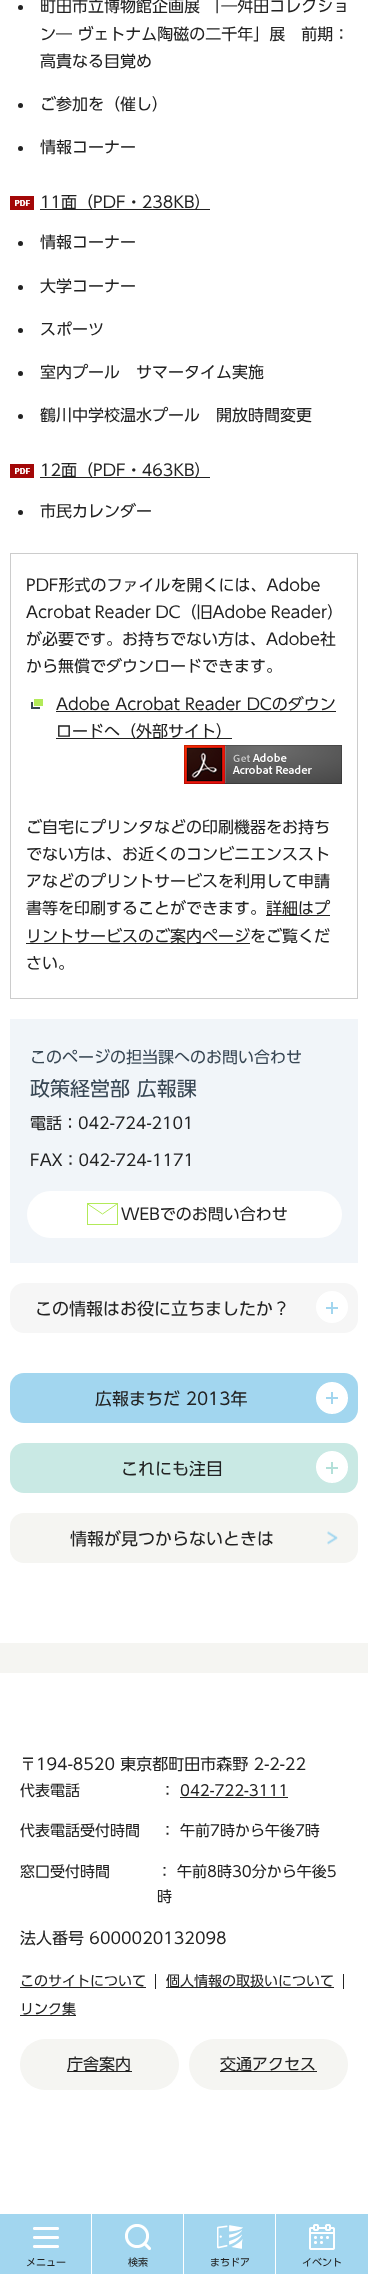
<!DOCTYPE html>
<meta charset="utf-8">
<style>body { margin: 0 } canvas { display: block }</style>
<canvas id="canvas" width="368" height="2274"></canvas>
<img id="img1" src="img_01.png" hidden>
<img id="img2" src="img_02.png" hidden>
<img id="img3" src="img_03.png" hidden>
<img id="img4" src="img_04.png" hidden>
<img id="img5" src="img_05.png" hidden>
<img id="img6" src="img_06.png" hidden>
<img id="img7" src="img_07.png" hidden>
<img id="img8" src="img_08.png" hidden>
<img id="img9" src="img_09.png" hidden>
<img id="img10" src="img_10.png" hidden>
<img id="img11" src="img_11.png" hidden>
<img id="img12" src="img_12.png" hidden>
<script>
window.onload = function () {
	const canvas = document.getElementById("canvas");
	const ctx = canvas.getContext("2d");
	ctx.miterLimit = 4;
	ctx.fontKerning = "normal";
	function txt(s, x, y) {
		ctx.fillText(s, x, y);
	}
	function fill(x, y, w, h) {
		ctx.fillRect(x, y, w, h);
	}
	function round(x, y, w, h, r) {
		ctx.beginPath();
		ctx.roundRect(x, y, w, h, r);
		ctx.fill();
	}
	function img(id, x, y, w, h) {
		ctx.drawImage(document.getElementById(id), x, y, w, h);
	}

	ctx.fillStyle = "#FFFFFF";
	fill(0, 0, 368, 2274);
	ctx.fillStyle = "#222222";
	ctx.beginPath();
	ctx.arc(20.5, 7.5, 2.5, 0, Math.PI * 2);
	ctx.fill();
	ctx.beginPath();
	ctx.arc(20.5, 105.5, 2.5, 0, Math.PI * 2);
	ctx.fill();
	ctx.beginPath();
	ctx.arc(20.5, 148.5, 2.5, 0, Math.PI * 2);
	ctx.fill();
	img("img1", 10, 196, 24, 14);
	fill(40, 209, 170, 1);
	ctx.beginPath();
	ctx.arc(20.5, 243.5, 2.5, 0, Math.PI * 2);
	ctx.fill();
	ctx.beginPath();
	ctx.arc(20.5, 287.5, 2.5, 0, Math.PI * 2);
	ctx.fill();
	ctx.beginPath();
	ctx.arc(20.5, 330.5, 2.5, 0, Math.PI * 2);
	ctx.fill();
	ctx.beginPath();
	ctx.arc(20.5, 373.5, 2.5, 0, Math.PI * 2);
	ctx.fill();
	ctx.beginPath();
	ctx.arc(20.5, 416.5, 2.5, 0, Math.PI * 2);
	ctx.fill();
	img("img1", 10, 464, 24, 14);
	fill(40, 477, 170, 1);
	ctx.beginPath();
	ctx.arc(20.5, 512.5, 2.5, 0, Math.PI * 2);
	ctx.fill();
	ctx.strokeStyle = "#CCCCCC";
	ctx.strokeRect(10.5, 553.5, 347, 445);
	img("img2", 31, 699, 12, 10);
	fill(56, 711, 280, 1);
	fill(56, 738, 176, 1);
	img("img3", 184, 745, 158, 39);
	fill(266, 915, 64, 1);
	fill(26, 943, 224, 1);
	ctx.fillStyle = "#F1F5F9";
	fill(10, 1019, 348, 244);
	ctx.fillStyle = "#FFFFFF";
	round(27, 1191, 315, 47, 23.5);
	img("img4", 87, 1203, 31, 22);
	ctx.fillStyle = "#F6F6F6";
	round(10, 1283, 348, 50, 14);
	img("img5", 316, 1291, 32, 32);
	ctx.fillStyle = "#A2D6EF";
	fill(326, 1307, 12, 2);
	fill(331, 1302, 2, 12);
	round(10, 1373, 348, 50, 14);
	img("img6", 316, 1382, 32, 32);
	fill(326, 1397, 12, 2);
	fill(331, 1392, 2, 12);
	ctx.fillStyle = "#C9E9E4";
	round(10, 1443, 348, 50, 14);
	img("img7", 316, 1451, 32, 32);
	ctx.fillStyle = "#B3E0D9";
	fill(326, 1467, 12, 2);
	fill(331, 1462, 2, 12);
	ctx.fillStyle = "#F5F5F2";
	round(10, 1513, 348, 50, 14);
	img("img8", 327, 1531, 11, 14);
	fill(0, 1643, 368, 30);
	ctx.fillStyle = "#222222";
	fill(180, 1797, 108, 1);
	fill(20, 1987, 126, 1);
	fill(155, 1974, 1, 15);
	fill(166, 1987, 168, 1);
	fill(343, 1974, 1, 15);
	fill(20, 2015, 56, 1);
	ctx.fillStyle = "#F5F5F2";
	round(20, 2039, 159, 51, 25);
	ctx.fillStyle = "#222222";
	fill(67, 2071, 65, 1);
	ctx.fillStyle = "#F5F5F2";
	round(189, 2039, 159, 51, 25);
	ctx.fillStyle = "#222222";
	fill(220, 2071, 97, 1);
	ctx.fillStyle = "#A2D6EF";
	fill(0, 2214, 91, 60);
	img("img9", 33, 2227, 26, 21);
	fill(92, 2214, 91, 60);
	img("img10", 125, 2224, 26, 26);
	fill(184, 2214, 91, 60);
	img("img11", 217, 2225, 26, 24);
	fill(276, 2214, 92, 60);
	img("img12", 309, 2224, 26, 26);
	ctx.font = "16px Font";
	ctx.fillStyle = "#222222";
	txt("町田市立博物館企画展 「―舛田コレクショ", 40, 12);
	txt("ン― ヴェトナム陶磁の二千年」展　前期：", 40, 40);
	txt("高貴なる目覚め", 40, 67);
	txt("ご参加を（催し）", 40, 110);
	txt("情報コーナー", 40, 153);
	txt("11面（PDF・238KB）", 40, 208);
	txt("情報コーナー", 40, 248);
	txt("大学コーナー", 40, 292);
	txt("スポーツ", 40, 335);
	txt("室内プール　サマータイム実施", 40, 378);
	txt("鶴川中学校温水プール　開放時間変更", 40, 421);
	txt("12面（PDF・463KB）", 40, 476);
	txt("市民カレンダー", 40, 517);
	txt("PDF形式のファイルを開くには、Adobe", 26, 591);
	ctx.wordSpacing = "-1px";
	txt("Acrobat Reader DC（旧Adobe Reader）", 26, 618);
	ctx.wordSpacing = "0px";
	txt("が必要です。お持ちでない方は、Adobe社", 26, 645);
	txt("から無償でダウンロードできます。", 26, 672);
	txt("Adobe Acrobat Reader DCのダウン", 56, 710);
	txt("ロードへ（外部サイト）", 56, 737);
	txt("ご自宅にプリンタなどの印刷機器をお持ち", 26, 833);
	txt("でない方は、お近くのコンビニエンススト", 26, 860);
	txt("アなどのプリントサービスを利用して申請", 26, 887);
	txt("書等を印刷することができます。", 26, 914);
	txt("詳細はプ", 266, 914);
	txt("リントサービスのご案内ページをご覧くだ", 26, 942);
	txt("さい。", 26, 969);
	ctx.fillStyle = "#374653";
	txt("このページの担当課へのお問い合わせ", 30, 1063);
	ctx.font = "20px Font";
	txt("政策経営部 広報課", 30, 1096);
	ctx.font = "16px Font";
	ctx.fillStyle = "#222222";
	txt("電話：042-724-2101", 30, 1129);
	txt("FAX：042-724-1171", 30, 1166);
	txt("WEBでのお問い合わせ", 121, 1220);
	ctx.font = "17px Font";
	txt("この情報はお役に立ちましたか？", 35, 1315);
	txt("広報まちだ 2013年", 95, 1405);
	txt("これにも注目", 121, 1475);
	txt("情報が見つからないときは", 70, 1545);
	ctx.font = "16px Font";
	txt("〒194-8520 東京都町田市森野 2-2-22", 20, 1770);
	ctx.font = "15px Font";
	txt("代表電話", 20, 1796);
	txt("： 042-722-3111", 160, 1796);
	txt("代表電話受付時間", 20, 1836);
	txt("： 午前7時から午後7時", 160, 1836);
	txt("窓口受付時間", 20, 1877);
	txt("： 午前8時30分から午後5", 157, 1877);
	txt("時", 157, 1902);
	ctx.font = "16px Font";
	txt("法人番号 6000020132098", 20, 1944);
	ctx.font = "14px Font";
	txt("このサイトについて", 20, 1986);
	txt("個人情報の取扱いについて", 166, 1986);
	txt("リンク集", 20, 2014);
	ctx.font = "16px Font";
	txt("庁舎案内", 67, 2070);
	txt("交通アクセス", 220, 2070);
	ctx.font = "10px Font";
	txt("メニュー", 26, 2266);
	txt("検索", 128, 2266);
	txt("まちドア", 210, 2266);
	txt("イベント", 302, 2266);
};
</script>
